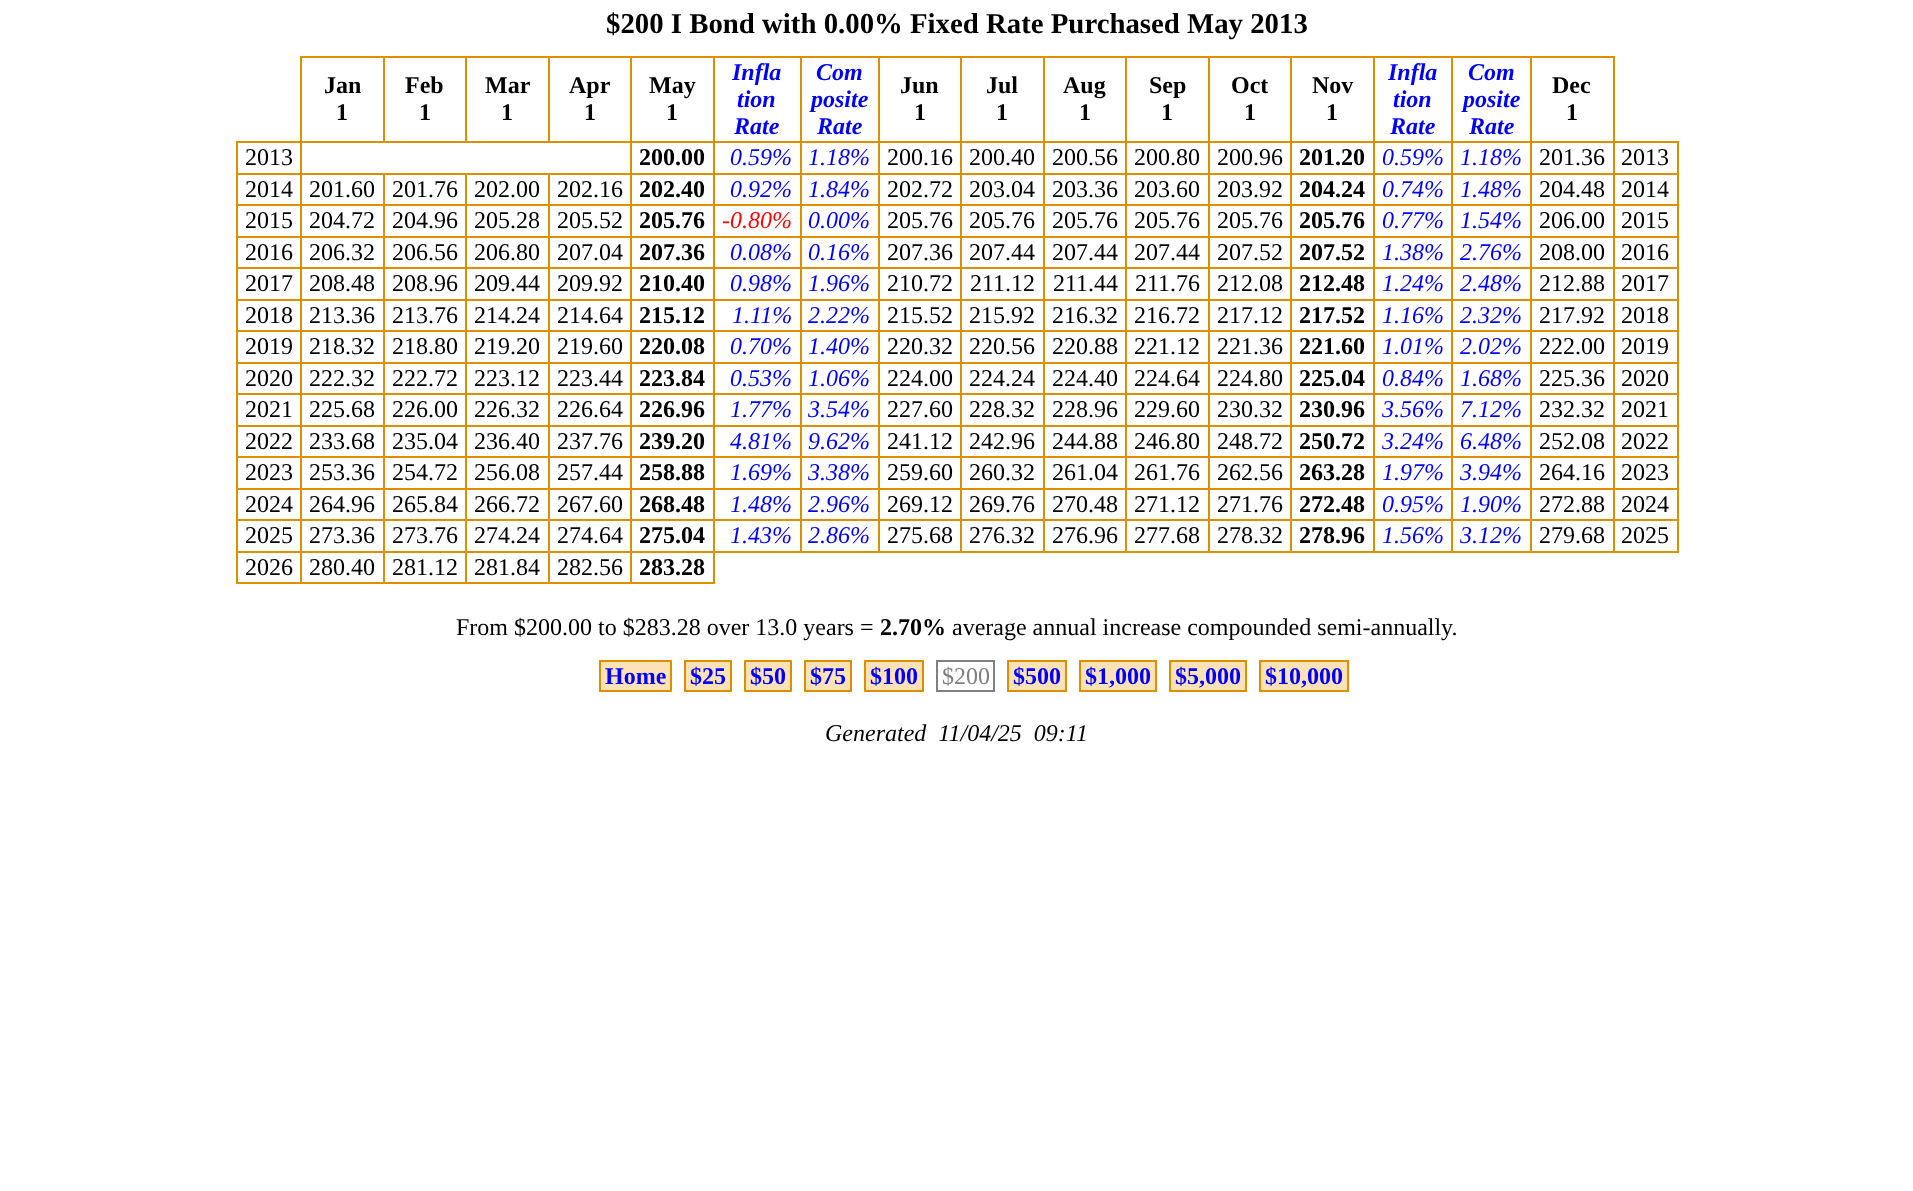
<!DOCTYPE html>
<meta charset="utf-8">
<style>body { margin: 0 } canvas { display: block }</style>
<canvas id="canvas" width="1913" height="1191"></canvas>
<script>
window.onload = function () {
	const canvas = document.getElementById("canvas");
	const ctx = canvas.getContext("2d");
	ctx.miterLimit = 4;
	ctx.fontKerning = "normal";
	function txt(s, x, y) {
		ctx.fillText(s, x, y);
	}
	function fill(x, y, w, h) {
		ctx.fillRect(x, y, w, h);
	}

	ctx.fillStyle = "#FFFFFF";
	fill(0, 0, 1913, 1191);
	ctx.fillStyle = "#DC9000";
	fill(1530, 56, 84, 2);
	fill(1613, 141, 66, 2);
	fill(1613, 173, 66, 2);
	fill(1613, 204, 66, 2);
	fill(1613, 236, 66, 2);
	fill(1613, 267, 66, 2);
	fill(1613, 299, 66, 2);
	fill(1613, 330, 66, 2);
	fill(1613, 362, 66, 2);
	fill(1613, 393, 66, 2);
	fill(1613, 425, 66, 2);
	fill(1613, 456, 66, 2);
	fill(1613, 488, 66, 2);
	fill(1613, 519, 66, 2);
	fill(1677, 519, 2, 33);
	fill(1613, 551, 66, 2);
	fill(1613, 519, 2, 33);
	fill(1530, 519, 84, 2);
	fill(1613, 488, 2, 33);
	fill(1530, 488, 84, 2);
	fill(1613, 456, 2, 33);
	fill(1530, 456, 84, 2);
	fill(1613, 425, 2, 33);
	fill(1530, 425, 84, 2);
	fill(1613, 393, 2, 33);
	fill(1530, 393, 84, 2);
	fill(1613, 362, 2, 33);
	fill(1530, 362, 84, 2);
	fill(1613, 330, 2, 33);
	fill(1530, 330, 84, 2);
	fill(1613, 299, 2, 33);
	fill(1530, 299, 84, 2);
	fill(1613, 267, 2, 33);
	fill(1530, 267, 84, 2);
	fill(1613, 236, 2, 33);
	fill(1530, 236, 84, 2);
	fill(1613, 204, 2, 33);
	fill(1530, 204, 84, 2);
	fill(1613, 173, 2, 33);
	fill(1530, 173, 84, 2);
	fill(1613, 141, 2, 33);
	fill(1530, 141, 84, 2);
	fill(1530, 551, 84, 2);
	fill(1530, 519, 2, 33);
	fill(1451, 519, 81, 2);
	fill(1530, 488, 2, 33);
	fill(1451, 488, 81, 2);
	fill(1530, 456, 2, 33);
	fill(1451, 456, 81, 2);
	fill(1530, 425, 2, 33);
	fill(1451, 425, 81, 2);
	fill(1530, 393, 2, 33);
	fill(1451, 393, 81, 2);
	fill(1530, 362, 2, 33);
	fill(1451, 362, 81, 2);
	fill(1530, 330, 2, 33);
	fill(1451, 330, 81, 2);
	fill(1530, 299, 2, 33);
	fill(1451, 299, 81, 2);
	fill(1530, 267, 2, 33);
	fill(1451, 267, 81, 2);
	fill(1530, 236, 2, 33);
	fill(1451, 236, 81, 2);
	fill(1530, 204, 2, 33);
	fill(1451, 204, 81, 2);
	fill(1530, 173, 2, 33);
	fill(1451, 173, 81, 2);
	fill(1530, 141, 2, 33);
	fill(1451, 141, 81, 2);
	fill(1530, 56, 2, 87);
	fill(1451, 56, 81, 2);
	fill(1451, 551, 81, 2);
	fill(1451, 519, 2, 33);
	fill(1373, 519, 79, 2);
	fill(1451, 488, 2, 33);
	fill(1373, 488, 79, 2);
	fill(1451, 456, 2, 33);
	fill(1373, 456, 79, 2);
	fill(1451, 425, 2, 33);
	fill(1373, 425, 79, 2);
	fill(1451, 393, 2, 33);
	fill(1373, 393, 79, 2);
	fill(1451, 362, 2, 33);
	fill(1373, 362, 79, 2);
	fill(1451, 330, 2, 33);
	fill(1373, 330, 79, 2);
	fill(1451, 299, 2, 33);
	fill(1373, 299, 79, 2);
	fill(1451, 267, 2, 33);
	fill(1373, 267, 79, 2);
	fill(1451, 236, 2, 33);
	fill(1373, 236, 79, 2);
	fill(1451, 204, 2, 33);
	fill(1373, 204, 79, 2);
	fill(1451, 173, 2, 33);
	fill(1373, 173, 79, 2);
	fill(1451, 141, 2, 33);
	fill(1373, 141, 79, 2);
	fill(1451, 56, 2, 87);
	fill(1373, 56, 79, 2);
	fill(1373, 551, 79, 2);
	fill(1373, 519, 2, 33);
	fill(1290, 519, 84, 2);
	fill(1373, 488, 2, 33);
	fill(1290, 488, 84, 2);
	fill(1373, 456, 2, 33);
	fill(1290, 456, 84, 2);
	fill(1373, 425, 2, 33);
	fill(1290, 425, 84, 2);
	fill(1373, 393, 2, 33);
	fill(1290, 393, 84, 2);
	fill(1373, 362, 2, 33);
	fill(1290, 362, 84, 2);
	fill(1373, 330, 2, 33);
	fill(1290, 330, 84, 2);
	fill(1373, 299, 2, 33);
	fill(1290, 299, 84, 2);
	fill(1373, 267, 2, 33);
	fill(1290, 267, 84, 2);
	fill(1373, 236, 2, 33);
	fill(1290, 236, 84, 2);
	fill(1373, 204, 2, 33);
	fill(1290, 204, 84, 2);
	fill(1373, 173, 2, 33);
	fill(1290, 173, 84, 2);
	fill(1373, 141, 2, 33);
	fill(1290, 141, 84, 2);
	fill(1373, 56, 2, 87);
	fill(1290, 56, 84, 2);
	fill(1290, 551, 84, 2);
	fill(1290, 519, 2, 33);
	fill(1208, 519, 84, 2);
	fill(1290, 488, 2, 33);
	fill(1208, 488, 84, 2);
	fill(1290, 456, 2, 33);
	fill(1208, 456, 84, 2);
	fill(1290, 425, 2, 33);
	fill(1208, 425, 84, 2);
	fill(1290, 393, 2, 33);
	fill(1208, 393, 84, 2);
	fill(1290, 362, 2, 33);
	fill(1208, 362, 84, 2);
	fill(1290, 330, 2, 33);
	fill(1208, 330, 84, 2);
	fill(1290, 299, 2, 33);
	fill(1208, 299, 84, 2);
	fill(1290, 267, 2, 33);
	fill(1208, 267, 84, 2);
	fill(1290, 236, 2, 33);
	fill(1208, 236, 84, 2);
	fill(1290, 204, 2, 33);
	fill(1208, 204, 84, 2);
	fill(1290, 173, 2, 33);
	fill(1208, 173, 84, 2);
	fill(1290, 141, 2, 33);
	fill(1208, 141, 84, 2);
	fill(1290, 56, 2, 87);
	fill(1208, 56, 84, 2);
	fill(1208, 551, 84, 2);
	fill(1208, 519, 2, 33);
	fill(1125, 519, 84, 2);
	fill(1208, 488, 2, 33);
	fill(1125, 488, 84, 2);
	fill(1208, 456, 2, 33);
	fill(1125, 456, 84, 2);
	fill(1208, 425, 2, 33);
	fill(1125, 425, 84, 2);
	fill(1208, 393, 2, 33);
	fill(1125, 393, 84, 2);
	fill(1208, 362, 2, 33);
	fill(1125, 362, 84, 2);
	fill(1208, 330, 2, 33);
	fill(1125, 330, 84, 2);
	fill(1208, 299, 2, 33);
	fill(1125, 299, 84, 2);
	fill(1208, 267, 2, 33);
	fill(1125, 267, 84, 2);
	fill(1208, 236, 2, 33);
	fill(1125, 236, 84, 2);
	fill(1208, 204, 2, 33);
	fill(1125, 204, 84, 2);
	fill(1208, 173, 2, 33);
	fill(1125, 173, 84, 2);
	fill(1208, 141, 2, 33);
	fill(1125, 141, 84, 2);
	fill(1208, 56, 2, 87);
	fill(1125, 56, 84, 2);
	fill(1125, 551, 84, 2);
	fill(1125, 519, 2, 33);
	fill(1043, 519, 84, 2);
	fill(1125, 488, 2, 33);
	fill(1043, 488, 84, 2);
	fill(1125, 456, 2, 33);
	fill(1043, 456, 84, 2);
	fill(1125, 425, 2, 33);
	fill(1043, 425, 84, 2);
	fill(1125, 393, 2, 33);
	fill(1043, 393, 84, 2);
	fill(1125, 362, 2, 33);
	fill(1043, 362, 84, 2);
	fill(1125, 330, 2, 33);
	fill(1043, 330, 84, 2);
	fill(1125, 299, 2, 33);
	fill(1043, 299, 84, 2);
	fill(1125, 267, 2, 33);
	fill(1043, 267, 84, 2);
	fill(1125, 236, 2, 33);
	fill(1043, 236, 84, 2);
	fill(1125, 204, 2, 33);
	fill(1043, 204, 84, 2);
	fill(1125, 173, 2, 33);
	fill(1043, 173, 84, 2);
	fill(1125, 141, 2, 33);
	fill(1043, 141, 84, 2);
	fill(1125, 56, 2, 87);
	fill(1043, 56, 84, 2);
	fill(1043, 551, 84, 2);
	fill(1043, 519, 2, 33);
	fill(960, 519, 84, 2);
	fill(1043, 488, 2, 33);
	fill(960, 488, 84, 2);
	fill(1043, 456, 2, 33);
	fill(960, 456, 84, 2);
	fill(1043, 425, 2, 33);
	fill(960, 425, 84, 2);
	fill(1043, 393, 2, 33);
	fill(960, 393, 84, 2);
	fill(1043, 362, 2, 33);
	fill(960, 362, 84, 2);
	fill(1043, 330, 2, 33);
	fill(960, 330, 84, 2);
	fill(1043, 299, 2, 33);
	fill(960, 299, 84, 2);
	fill(1043, 267, 2, 33);
	fill(960, 267, 84, 2);
	fill(1043, 236, 2, 33);
	fill(960, 236, 84, 2);
	fill(1043, 204, 2, 33);
	fill(960, 204, 84, 2);
	fill(1043, 173, 2, 33);
	fill(960, 173, 84, 2);
	fill(1043, 141, 2, 33);
	fill(960, 141, 84, 2);
	fill(1043, 56, 2, 87);
	fill(960, 56, 84, 2);
	fill(960, 551, 84, 2);
	fill(960, 519, 2, 33);
	fill(878, 519, 84, 2);
	fill(960, 488, 2, 33);
	fill(878, 488, 84, 2);
	fill(960, 456, 2, 33);
	fill(878, 456, 84, 2);
	fill(960, 425, 2, 33);
	fill(878, 425, 84, 2);
	fill(960, 393, 2, 33);
	fill(878, 393, 84, 2);
	fill(960, 362, 2, 33);
	fill(878, 362, 84, 2);
	fill(960, 330, 2, 33);
	fill(878, 330, 84, 2);
	fill(960, 299, 2, 33);
	fill(878, 299, 84, 2);
	fill(960, 267, 2, 33);
	fill(878, 267, 84, 2);
	fill(960, 236, 2, 33);
	fill(878, 236, 84, 2);
	fill(960, 204, 2, 33);
	fill(878, 204, 84, 2);
	fill(960, 173, 2, 33);
	fill(878, 173, 84, 2);
	fill(960, 141, 2, 33);
	fill(878, 141, 84, 2);
	fill(960, 56, 2, 87);
	fill(878, 56, 84, 2);
	fill(878, 551, 84, 2);
	fill(878, 519, 2, 33);
	fill(800, 519, 79, 2);
	fill(878, 488, 2, 33);
	fill(800, 488, 79, 2);
	fill(878, 456, 2, 33);
	fill(800, 456, 79, 2);
	fill(878, 425, 2, 33);
	fill(800, 425, 79, 2);
	fill(878, 393, 2, 33);
	fill(800, 393, 79, 2);
	fill(878, 362, 2, 33);
	fill(800, 362, 79, 2);
	fill(878, 330, 2, 33);
	fill(800, 330, 79, 2);
	fill(878, 299, 2, 33);
	fill(800, 299, 79, 2);
	fill(878, 267, 2, 33);
	fill(800, 267, 79, 2);
	fill(878, 236, 2, 33);
	fill(800, 236, 79, 2);
	fill(878, 204, 2, 33);
	fill(800, 204, 79, 2);
	fill(878, 173, 2, 33);
	fill(800, 173, 79, 2);
	fill(878, 141, 2, 33);
	fill(800, 141, 79, 2);
	fill(878, 56, 2, 87);
	fill(800, 56, 79, 2);
	fill(800, 551, 79, 2);
	fill(800, 519, 2, 33);
	fill(713, 519, 88, 2);
	fill(800, 488, 2, 33);
	fill(713, 488, 88, 2);
	fill(800, 456, 2, 33);
	fill(713, 456, 88, 2);
	fill(800, 425, 2, 33);
	fill(713, 425, 88, 2);
	fill(800, 393, 2, 33);
	fill(713, 393, 88, 2);
	fill(800, 362, 2, 33);
	fill(713, 362, 88, 2);
	fill(800, 330, 2, 33);
	fill(713, 330, 88, 2);
	fill(800, 299, 2, 33);
	fill(713, 299, 88, 2);
	fill(800, 267, 2, 33);
	fill(713, 267, 88, 2);
	fill(800, 236, 2, 33);
	fill(713, 236, 88, 2);
	fill(800, 204, 2, 33);
	fill(713, 204, 88, 2);
	fill(800, 173, 2, 33);
	fill(713, 173, 88, 2);
	fill(800, 141, 2, 33);
	fill(713, 141, 88, 2);
	fill(800, 56, 2, 87);
	fill(713, 56, 88, 2);
	fill(630, 551, 84, 2);
	fill(713, 551, 2, 33);
	fill(713, 551, 88, 2);
	fill(713, 519, 2, 33);
	fill(630, 519, 84, 2);
	fill(713, 488, 2, 33);
	fill(630, 488, 84, 2);
	fill(713, 456, 2, 33);
	fill(630, 456, 84, 2);
	fill(713, 425, 2, 33);
	fill(630, 425, 84, 2);
	fill(713, 393, 2, 33);
	fill(630, 393, 84, 2);
	fill(713, 362, 2, 33);
	fill(630, 362, 84, 2);
	fill(713, 330, 2, 33);
	fill(630, 330, 84, 2);
	fill(713, 299, 2, 33);
	fill(630, 299, 84, 2);
	fill(713, 267, 2, 33);
	fill(630, 267, 84, 2);
	fill(713, 236, 2, 33);
	fill(630, 236, 84, 2);
	fill(713, 204, 2, 33);
	fill(630, 204, 84, 2);
	fill(713, 173, 2, 33);
	fill(630, 173, 84, 2);
	fill(713, 141, 2, 33);
	fill(630, 141, 84, 2);
	fill(713, 56, 2, 87);
	fill(630, 56, 84, 2);
	fill(630, 582, 84, 2);
	fill(630, 551, 2, 33);
	fill(548, 551, 84, 2);
	fill(630, 519, 2, 33);
	fill(548, 519, 84, 2);
	fill(630, 488, 2, 33);
	fill(548, 488, 84, 2);
	fill(630, 456, 2, 33);
	fill(548, 456, 84, 2);
	fill(630, 425, 2, 33);
	fill(548, 425, 84, 2);
	fill(630, 393, 2, 33);
	fill(548, 393, 84, 2);
	fill(630, 362, 2, 33);
	fill(548, 362, 84, 2);
	fill(630, 330, 2, 33);
	fill(548, 330, 84, 2);
	fill(630, 299, 2, 33);
	fill(548, 299, 84, 2);
	fill(630, 267, 2, 33);
	fill(548, 267, 84, 2);
	fill(630, 236, 2, 33);
	fill(548, 236, 84, 2);
	fill(630, 204, 2, 33);
	fill(548, 204, 84, 2);
	fill(630, 173, 2, 33);
	fill(548, 173, 84, 2);
	fill(630, 141, 2, 33);
	fill(300, 141, 332, 2);
	fill(630, 56, 2, 87);
	fill(548, 56, 84, 2);
	fill(548, 56, 2, 87);
	fill(465, 56, 84, 2);
	fill(465, 56, 2, 87);
	fill(383, 56, 84, 2);
	fill(383, 56, 2, 87);
	fill(300, 56, 84, 2);
	fill(548, 582, 84, 2);
	fill(548, 551, 2, 33);
	fill(465, 551, 84, 2);
	fill(548, 519, 2, 33);
	fill(465, 519, 84, 2);
	fill(548, 488, 2, 33);
	fill(465, 488, 84, 2);
	fill(548, 456, 2, 33);
	fill(465, 456, 84, 2);
	fill(548, 425, 2, 33);
	fill(465, 425, 84, 2);
	fill(548, 393, 2, 33);
	fill(465, 393, 84, 2);
	fill(548, 362, 2, 33);
	fill(465, 362, 84, 2);
	fill(548, 330, 2, 33);
	fill(465, 330, 84, 2);
	fill(548, 299, 2, 33);
	fill(465, 299, 84, 2);
	fill(548, 267, 2, 33);
	fill(465, 267, 84, 2);
	fill(548, 236, 2, 33);
	fill(465, 236, 84, 2);
	fill(548, 204, 2, 33);
	fill(465, 204, 84, 2);
	fill(548, 173, 2, 33);
	fill(465, 173, 84, 2);
	fill(465, 582, 84, 2);
	fill(465, 551, 2, 33);
	fill(383, 551, 84, 2);
	fill(465, 519, 2, 33);
	fill(383, 519, 84, 2);
	fill(465, 488, 2, 33);
	fill(383, 488, 84, 2);
	fill(465, 456, 2, 33);
	fill(383, 456, 84, 2);
	fill(465, 425, 2, 33);
	fill(383, 425, 84, 2);
	fill(465, 393, 2, 33);
	fill(383, 393, 84, 2);
	fill(465, 362, 2, 33);
	fill(383, 362, 84, 2);
	fill(465, 330, 2, 33);
	fill(383, 330, 84, 2);
	fill(465, 299, 2, 33);
	fill(383, 299, 84, 2);
	fill(465, 267, 2, 33);
	fill(383, 267, 84, 2);
	fill(465, 236, 2, 33);
	fill(383, 236, 84, 2);
	fill(465, 204, 2, 33);
	fill(383, 204, 84, 2);
	fill(465, 173, 2, 33);
	fill(383, 173, 84, 2);
	fill(383, 582, 84, 2);
	fill(383, 551, 2, 33);
	fill(300, 551, 84, 2);
	fill(383, 519, 2, 33);
	fill(300, 519, 84, 2);
	fill(383, 488, 2, 33);
	fill(300, 488, 84, 2);
	fill(383, 456, 2, 33);
	fill(300, 456, 84, 2);
	fill(383, 425, 2, 33);
	fill(300, 425, 84, 2);
	fill(383, 393, 2, 33);
	fill(300, 393, 84, 2);
	fill(383, 362, 2, 33);
	fill(300, 362, 84, 2);
	fill(383, 330, 2, 33);
	fill(300, 330, 84, 2);
	fill(383, 299, 2, 33);
	fill(300, 299, 84, 2);
	fill(383, 267, 2, 33);
	fill(300, 267, 84, 2);
	fill(383, 236, 2, 33);
	fill(300, 236, 84, 2);
	fill(383, 204, 2, 33);
	fill(300, 204, 84, 2);
	fill(383, 173, 2, 33);
	fill(300, 173, 84, 2);
	fill(300, 582, 84, 2);
	fill(300, 551, 2, 33);
	fill(236, 551, 66, 2);
	fill(300, 519, 2, 33);
	fill(236, 519, 66, 2);
	fill(300, 488, 2, 33);
	fill(236, 488, 66, 2);
	fill(300, 456, 2, 33);
	fill(236, 456, 66, 2);
	fill(300, 425, 2, 33);
	fill(236, 425, 66, 2);
	fill(300, 393, 2, 33);
	fill(236, 393, 66, 2);
	fill(300, 362, 2, 33);
	fill(236, 362, 66, 2);
	fill(300, 330, 2, 33);
	fill(236, 330, 66, 2);
	fill(300, 299, 2, 33);
	fill(236, 299, 66, 2);
	fill(300, 267, 2, 33);
	fill(236, 267, 66, 2);
	fill(300, 236, 2, 33);
	fill(236, 236, 66, 2);
	fill(300, 204, 2, 33);
	fill(236, 204, 66, 2);
	fill(300, 173, 2, 33);
	fill(236, 173, 66, 2);
	fill(300, 141, 2, 33);
	fill(236, 141, 66, 2);
	fill(300, 56, 2, 87);
	fill(1613, 56, 2, 87);
	fill(236, 582, 66, 2);
	fill(236, 551, 2, 33);
	fill(236, 519, 2, 33);
	fill(236, 488, 2, 33);
	fill(236, 456, 2, 33);
	fill(236, 425, 2, 33);
	fill(236, 393, 2, 33);
	fill(236, 362, 2, 33);
	fill(236, 330, 2, 33);
	fill(236, 299, 2, 33);
	fill(236, 267, 2, 33);
	fill(236, 236, 2, 33);
	fill(236, 204, 2, 33);
	fill(236, 173, 2, 33);
	fill(236, 141, 2, 33);
	fill(1677, 488, 2, 33);
	fill(1677, 456, 2, 33);
	fill(1677, 425, 2, 33);
	fill(1677, 393, 2, 33);
	fill(1677, 362, 2, 33);
	fill(1677, 330, 2, 33);
	fill(1677, 299, 2, 33);
	fill(1677, 267, 2, 33);
	fill(1677, 236, 2, 33);
	fill(1677, 204, 2, 33);
	fill(1677, 173, 2, 33);
	fill(1677, 141, 2, 33);
	ctx.fillStyle = "#FDE2B8";
	ctx.beginPath();
	ctx.rect(600, 661, 71, 30);
	ctx.fill();
	ctx.strokeStyle = "#DC9000";
	ctx.lineWidth = 2;
	ctx.stroke();
	ctx.beginPath();
	ctx.rect(685, 661, 46, 30);
	ctx.fill();
	ctx.stroke();
	ctx.beginPath();
	ctx.rect(745, 661, 46, 30);
	ctx.fill();
	ctx.stroke();
	ctx.beginPath();
	ctx.rect(805, 661, 46, 30);
	ctx.fill();
	ctx.stroke();
	ctx.beginPath();
	ctx.rect(865, 661, 58, 30);
	ctx.fill();
	ctx.stroke();
	ctx.strokeStyle = "#808080";
	ctx.strokeRect(937, 661, 57, 30);
	ctx.beginPath();
	ctx.rect(1008, 661, 58, 30);
	ctx.fill();
	ctx.strokeStyle = "#DC9000";
	ctx.stroke();
	ctx.beginPath();
	ctx.rect(1080, 661, 76, 30);
	ctx.fill();
	ctx.stroke();
	ctx.beginPath();
	ctx.rect(1170, 661, 76, 30);
	ctx.fill();
	ctx.stroke();
	ctx.beginPath();
	ctx.rect(1260, 661, 88, 30);
	ctx.fill();
	ctx.stroke();
	ctx.font = "bold 28.8px Liberation Serif";
	ctx.fillStyle = "#000000";
	txt("$200 I Bond with 0.00% Fixed Rate Purchased May 2013", 606, 33);
	ctx.font = "bold 24px Liberation Serif";
	txt("Jan", 324, 93);
	txt("1", 336, 120);
	txt("Feb", 405, 93);
	txt("1", 419, 120);
	txt("Mar", 485, 93);
	txt("1", 501, 120);
	txt("Apr", 569, 93);
	txt("1", 584, 120);
	txt("May", 649, 93);
	txt("1", 666, 120);
	ctx.font = "italic bold 24px Liberation Serif";
	ctx.fillStyle = "#0000FF";
	txt("Infla", 732, 80);
	txt("tion", 737, 107);
	txt("Rate", 734, 134);
	txt("Com", 816, 80);
	txt("posite", 811, 107);
	txt("Rate", 817, 134);
	ctx.font = "bold 24px Liberation Serif";
	ctx.fillStyle = "#000000";
	txt("Jun", 900, 93);
	txt("1", 914, 120);
	txt("Jul", 986, 93);
	txt("1", 996, 120);
	txt("Aug", 1063, 93);
	txt("1", 1079, 120);
	txt("Sep", 1149, 93);
	txt("1", 1161, 120);
	txt("Oct", 1231, 93);
	txt("1", 1244, 120);
	txt("Nov", 1312, 93);
	txt("1", 1326, 120);
	ctx.font = "italic bold 24px Liberation Serif";
	ctx.fillStyle = "#0000FF";
	txt("Infla", 1388, 80);
	txt("tion", 1393, 107);
	txt("Rate", 1390, 134);
	txt("Com", 1468, 80);
	txt("posite", 1463, 107);
	txt("Rate", 1469, 134);
	ctx.font = "bold 24px Liberation Serif";
	ctx.fillStyle = "#000000";
	txt("Dec", 1552, 93);
	txt("1", 1566, 120);
	ctx.font = "24px Liberation Serif";
	txt("2013", 245, 165);
	ctx.font = "bold 24px Liberation Serif";
	txt("200.00", 639, 165);
	ctx.font = "italic 24px Liberation Serif";
	ctx.fillStyle = "#0000FF";
	txt("0.59%", 730, 165);
	txt("1.18%", 808, 165);
	ctx.font = "24px Liberation Serif";
	ctx.fillStyle = "#000000";
	txt("200.16", 887, 165);
	txt("200.40", 969, 165);
	txt("200.56", 1052, 165);
	txt("200.80", 1134, 165);
	txt("200.96", 1217, 165);
	ctx.font = "bold 24px Liberation Serif";
	txt("201.20", 1299, 165);
	ctx.font = "italic 24px Liberation Serif";
	ctx.fillStyle = "#0000FF";
	txt("0.59%", 1382, 165);
	txt("1.18%", 1460, 165);
	ctx.font = "24px Liberation Serif";
	ctx.fillStyle = "#000000";
	txt("201.36", 1539, 165);
	txt("2013", 1621, 165);
	txt("2014", 245, 197);
	txt("201.60", 309, 197);
	txt("201.76", 392, 197);
	txt("202.00", 474, 197);
	txt("202.16", 557, 197);
	ctx.font = "bold 24px Liberation Serif";
	txt("202.40", 639, 197);
	ctx.font = "italic 24px Liberation Serif";
	ctx.fillStyle = "#0000FF";
	txt("0.92%", 730, 197);
	txt("1.84%", 808, 197);
	ctx.font = "24px Liberation Serif";
	ctx.fillStyle = "#000000";
	txt("202.72", 887, 197);
	txt("203.04", 969, 197);
	txt("203.36", 1052, 197);
	txt("203.60", 1134, 197);
	txt("203.92", 1217, 197);
	ctx.font = "bold 24px Liberation Serif";
	txt("204.24", 1299, 197);
	ctx.font = "italic 24px Liberation Serif";
	ctx.fillStyle = "#0000FF";
	txt("0.74%", 1382, 197);
	txt("1.48%", 1460, 197);
	ctx.font = "24px Liberation Serif";
	ctx.fillStyle = "#000000";
	txt("204.48", 1539, 197);
	txt("2014", 1621, 197);
	txt("2015", 245, 228);
	txt("204.72", 309, 228);
	txt("204.96", 392, 228);
	txt("205.28", 474, 228);
	txt("205.52", 557, 228);
	ctx.font = "bold 24px Liberation Serif";
	txt("205.76", 639, 228);
	ctx.font = "italic 24px Liberation Serif";
	ctx.fillStyle = "#FF0000";
	txt("-0.80%", 722, 228);
	ctx.fillStyle = "#0000FF";
	txt("0.00%", 808, 228);
	ctx.font = "24px Liberation Serif";
	ctx.fillStyle = "#000000";
	txt("205.76", 887, 228);
	txt("205.76", 969, 228);
	txt("205.76", 1052, 228);
	txt("205.76", 1134, 228);
	txt("205.76", 1217, 228);
	ctx.font = "bold 24px Liberation Serif";
	txt("205.76", 1299, 228);
	ctx.font = "italic 24px Liberation Serif";
	ctx.fillStyle = "#0000FF";
	txt("0.77%", 1382, 228);
	txt("1.54%", 1460, 228);
	ctx.font = "24px Liberation Serif";
	ctx.fillStyle = "#000000";
	txt("206.00", 1539, 228);
	txt("2015", 1621, 228);
	txt("2016", 245, 260);
	txt("206.32", 309, 260);
	txt("206.56", 392, 260);
	txt("206.80", 474, 260);
	txt("207.04", 557, 260);
	ctx.font = "bold 24px Liberation Serif";
	txt("207.36", 639, 260);
	ctx.font = "italic 24px Liberation Serif";
	ctx.fillStyle = "#0000FF";
	txt("0.08%", 730, 260);
	txt("0.16%", 808, 260);
	ctx.font = "24px Liberation Serif";
	ctx.fillStyle = "#000000";
	txt("207.36", 887, 260);
	txt("207.44", 969, 260);
	txt("207.44", 1052, 260);
	txt("207.44", 1134, 260);
	txt("207.52", 1217, 260);
	ctx.font = "bold 24px Liberation Serif";
	txt("207.52", 1299, 260);
	ctx.font = "italic 24px Liberation Serif";
	ctx.fillStyle = "#0000FF";
	txt("1.38%", 1382, 260);
	txt("2.76%", 1460, 260);
	ctx.font = "24px Liberation Serif";
	ctx.fillStyle = "#000000";
	txt("208.00", 1539, 260);
	txt("2016", 1621, 260);
	txt("2017", 245, 291);
	txt("208.48", 309, 291);
	txt("208.96", 392, 291);
	txt("209.44", 474, 291);
	txt("209.92", 557, 291);
	ctx.font = "bold 24px Liberation Serif";
	txt("210.40", 639, 291);
	ctx.font = "italic 24px Liberation Serif";
	ctx.fillStyle = "#0000FF";
	txt("0.98%", 730, 291);
	txt("1.96%", 808, 291);
	ctx.font = "24px Liberation Serif";
	ctx.fillStyle = "#000000";
	txt("210.72", 887, 291);
	txt("211.12", 970, 291);
	txt("211.44", 1053, 291);
	txt("211.76", 1135, 291);
	txt("212.08", 1217, 291);
	ctx.font = "bold 24px Liberation Serif";
	txt("212.48", 1299, 291);
	ctx.font = "italic 24px Liberation Serif";
	ctx.fillStyle = "#0000FF";
	txt("1.24%", 1382, 291);
	txt("2.48%", 1460, 291);
	ctx.font = "24px Liberation Serif";
	ctx.fillStyle = "#000000";
	txt("212.88", 1539, 291);
	txt("2017", 1621, 291);
	txt("2018", 245, 323);
	txt("213.36", 309, 323);
	txt("213.76", 392, 323);
	txt("214.24", 474, 323);
	txt("214.64", 557, 323);
	ctx.font = "bold 24px Liberation Serif";
	txt("215.12", 639, 323);
	ctx.font = "italic 24px Liberation Serif";
	ctx.fillStyle = "#0000FF";
	txt("1.11%", 732, 323);
	txt("2.22%", 808, 323);
	ctx.font = "24px Liberation Serif";
	ctx.fillStyle = "#000000";
	txt("215.52", 887, 323);
	txt("215.92", 969, 323);
	txt("216.32", 1052, 323);
	txt("216.72", 1134, 323);
	txt("217.12", 1217, 323);
	ctx.font = "bold 24px Liberation Serif";
	txt("217.52", 1299, 323);
	ctx.font = "italic 24px Liberation Serif";
	ctx.fillStyle = "#0000FF";
	txt("1.16%", 1382, 323);
	txt("2.32%", 1460, 323);
	ctx.font = "24px Liberation Serif";
	ctx.fillStyle = "#000000";
	txt("217.92", 1539, 323);
	txt("2018", 1621, 323);
	txt("2019", 245, 354);
	txt("218.32", 309, 354);
	txt("218.80", 392, 354);
	txt("219.20", 474, 354);
	txt("219.60", 557, 354);
	ctx.font = "bold 24px Liberation Serif";
	txt("220.08", 639, 354);
	ctx.font = "italic 24px Liberation Serif";
	ctx.fillStyle = "#0000FF";
	txt("0.70%", 730, 354);
	txt("1.40%", 808, 354);
	ctx.font = "24px Liberation Serif";
	ctx.fillStyle = "#000000";
	txt("220.32", 887, 354);
	txt("220.56", 969, 354);
	txt("220.88", 1052, 354);
	txt("221.12", 1134, 354);
	txt("221.36", 1217, 354);
	ctx.font = "bold 24px Liberation Serif";
	txt("221.60", 1299, 354);
	ctx.font = "italic 24px Liberation Serif";
	ctx.fillStyle = "#0000FF";
	txt("1.01%", 1382, 354);
	txt("2.02%", 1460, 354);
	ctx.font = "24px Liberation Serif";
	ctx.fillStyle = "#000000";
	txt("222.00", 1539, 354);
	txt("2019", 1621, 354);
	txt("2020", 245, 386);
	txt("222.32", 309, 386);
	txt("222.72", 392, 386);
	txt("223.12", 474, 386);
	txt("223.44", 557, 386);
	ctx.font = "bold 24px Liberation Serif";
	txt("223.84", 639, 386);
	ctx.font = "italic 24px Liberation Serif";
	ctx.fillStyle = "#0000FF";
	txt("0.53%", 730, 386);
	txt("1.06%", 808, 386);
	ctx.font = "24px Liberation Serif";
	ctx.fillStyle = "#000000";
	txt("224.00", 887, 386);
	txt("224.24", 969, 386);
	txt("224.40", 1052, 386);
	txt("224.64", 1134, 386);
	txt("224.80", 1217, 386);
	ctx.font = "bold 24px Liberation Serif";
	txt("225.04", 1299, 386);
	ctx.font = "italic 24px Liberation Serif";
	ctx.fillStyle = "#0000FF";
	txt("0.84%", 1382, 386);
	txt("1.68%", 1460, 386);
	ctx.font = "24px Liberation Serif";
	ctx.fillStyle = "#000000";
	txt("225.36", 1539, 386);
	txt("2020", 1621, 386);
	txt("2021", 245, 417);
	txt("225.68", 309, 417);
	txt("226.00", 392, 417);
	txt("226.32", 474, 417);
	txt("226.64", 557, 417);
	ctx.font = "bold 24px Liberation Serif";
	txt("226.96", 639, 417);
	ctx.font = "italic 24px Liberation Serif";
	ctx.fillStyle = "#0000FF";
	txt("1.77%", 730, 417);
	txt("3.54%", 808, 417);
	ctx.font = "24px Liberation Serif";
	ctx.fillStyle = "#000000";
	txt("227.60", 887, 417);
	txt("228.32", 969, 417);
	txt("228.96", 1052, 417);
	txt("229.60", 1134, 417);
	txt("230.32", 1217, 417);
	ctx.font = "bold 24px Liberation Serif";
	txt("230.96", 1299, 417);
	ctx.font = "italic 24px Liberation Serif";
	ctx.fillStyle = "#0000FF";
	txt("3.56%", 1382, 417);
	txt("7.12%", 1460, 417);
	ctx.font = "24px Liberation Serif";
	ctx.fillStyle = "#000000";
	txt("232.32", 1539, 417);
	txt("2021", 1621, 417);
	txt("2022", 245, 449);
	txt("233.68", 309, 449);
	txt("235.04", 392, 449);
	txt("236.40", 474, 449);
	txt("237.76", 557, 449);
	ctx.font = "bold 24px Liberation Serif";
	txt("239.20", 639, 449);
	ctx.font = "italic 24px Liberation Serif";
	ctx.fillStyle = "#0000FF";
	txt("4.81%", 730, 449);
	txt("9.62%", 808, 449);
	ctx.font = "24px Liberation Serif";
	ctx.fillStyle = "#000000";
	txt("241.12", 887, 449);
	txt("242.96", 969, 449);
	txt("244.88", 1052, 449);
	txt("246.80", 1134, 449);
	txt("248.72", 1217, 449);
	ctx.font = "bold 24px Liberation Serif";
	txt("250.72", 1299, 449);
	ctx.font = "italic 24px Liberation Serif";
	ctx.fillStyle = "#0000FF";
	txt("3.24%", 1382, 449);
	txt("6.48%", 1460, 449);
	ctx.font = "24px Liberation Serif";
	ctx.fillStyle = "#000000";
	txt("252.08", 1539, 449);
	txt("2022", 1621, 449);
	txt("2023", 245, 480);
	txt("253.36", 309, 480);
	txt("254.72", 392, 480);
	txt("256.08", 474, 480);
	txt("257.44", 557, 480);
	ctx.font = "bold 24px Liberation Serif";
	txt("258.88", 639, 480);
	ctx.font = "italic 24px Liberation Serif";
	ctx.fillStyle = "#0000FF";
	txt("1.69%", 730, 480);
	txt("3.38%", 808, 480);
	ctx.font = "24px Liberation Serif";
	ctx.fillStyle = "#000000";
	txt("259.60", 887, 480);
	txt("260.32", 969, 480);
	txt("261.04", 1052, 480);
	txt("261.76", 1134, 480);
	txt("262.56", 1217, 480);
	ctx.font = "bold 24px Liberation Serif";
	txt("263.28", 1299, 480);
	ctx.font = "italic 24px Liberation Serif";
	ctx.fillStyle = "#0000FF";
	txt("1.97%", 1382, 480);
	txt("3.94%", 1460, 480);
	ctx.font = "24px Liberation Serif";
	ctx.fillStyle = "#000000";
	txt("264.16", 1539, 480);
	txt("2023", 1621, 480);
	txt("2024", 245, 512);
	txt("264.96", 309, 512);
	txt("265.84", 392, 512);
	txt("266.72", 474, 512);
	txt("267.60", 557, 512);
	ctx.font = "bold 24px Liberation Serif";
	txt("268.48", 639, 512);
	ctx.font = "italic 24px Liberation Serif";
	ctx.fillStyle = "#0000FF";
	txt("1.48%", 730, 512);
	txt("2.96%", 808, 512);
	ctx.font = "24px Liberation Serif";
	ctx.fillStyle = "#000000";
	txt("269.12", 887, 512);
	txt("269.76", 969, 512);
	txt("270.48", 1052, 512);
	txt("271.12", 1134, 512);
	txt("271.76", 1217, 512);
	ctx.font = "bold 24px Liberation Serif";
	txt("272.48", 1299, 512);
	ctx.font = "italic 24px Liberation Serif";
	ctx.fillStyle = "#0000FF";
	txt("0.95%", 1382, 512);
	txt("1.90%", 1460, 512);
	ctx.font = "24px Liberation Serif";
	ctx.fillStyle = "#000000";
	txt("272.88", 1539, 512);
	txt("2024", 1621, 512);
	txt("2025", 245, 543);
	txt("273.36", 309, 543);
	txt("273.76", 392, 543);
	txt("274.24", 474, 543);
	txt("274.64", 557, 543);
	ctx.font = "bold 24px Liberation Serif";
	txt("275.04", 639, 543);
	ctx.font = "italic 24px Liberation Serif";
	ctx.fillStyle = "#0000FF";
	txt("1.43%", 730, 543);
	txt("2.86%", 808, 543);
	ctx.font = "24px Liberation Serif";
	ctx.fillStyle = "#000000";
	txt("275.68", 887, 543);
	txt("276.32", 969, 543);
	txt("276.96", 1052, 543);
	txt("277.68", 1134, 543);
	txt("278.32", 1217, 543);
	ctx.font = "bold 24px Liberation Serif";
	txt("278.96", 1299, 543);
	ctx.font = "italic 24px Liberation Serif";
	ctx.fillStyle = "#0000FF";
	txt("1.56%", 1382, 543);
	txt("3.12%", 1460, 543);
	ctx.font = "24px Liberation Serif";
	ctx.fillStyle = "#000000";
	txt("279.68", 1539, 543);
	txt("2025", 1621, 543);
	txt("2026", 245, 575);
	txt("280.40", 309, 575);
	txt("281.12", 392, 575);
	txt("281.84", 474, 575);
	txt("282.56", 557, 575);
	ctx.font = "bold 24px Liberation Serif";
	txt("283.28", 639, 575);
	ctx.font = "24px Liberation Serif";
	txt("From $200.00 to $283.28 over 13.0 years =", 456, 635);
	ctx.font = "bold 24px Liberation Serif";
	txt("2.70%", 880, 635);
	ctx.font = "24px Liberation Serif";
	txt("average annual increase compounded semi-annually.", 952, 635);
	ctx.font = "bold 24px Liberation Serif";
	ctx.fillStyle = "#0000FF";
	txt("Home", 605, 684);
	txt("$25", 690, 684);
	txt("$50", 750, 684);
	txt("$75", 810, 684);
	txt("$100", 870, 684);
	ctx.font = "24px Liberation Serif";
	ctx.fillStyle = "#808080";
	txt("$200", 942, 684);
	ctx.font = "bold 24px Liberation Serif";
	ctx.fillStyle = "#0000FF";
	txt("$500", 1013, 684);
	txt("$1,000", 1085, 684);
	txt("$5,000", 1175, 684);
	txt("$10,000", 1265, 684);
	ctx.font = "italic 24px Liberation Serif";
	ctx.fillStyle = "#000000";
	txt("Generated  11/04/25  09:11", 825, 741);
};
</script>
